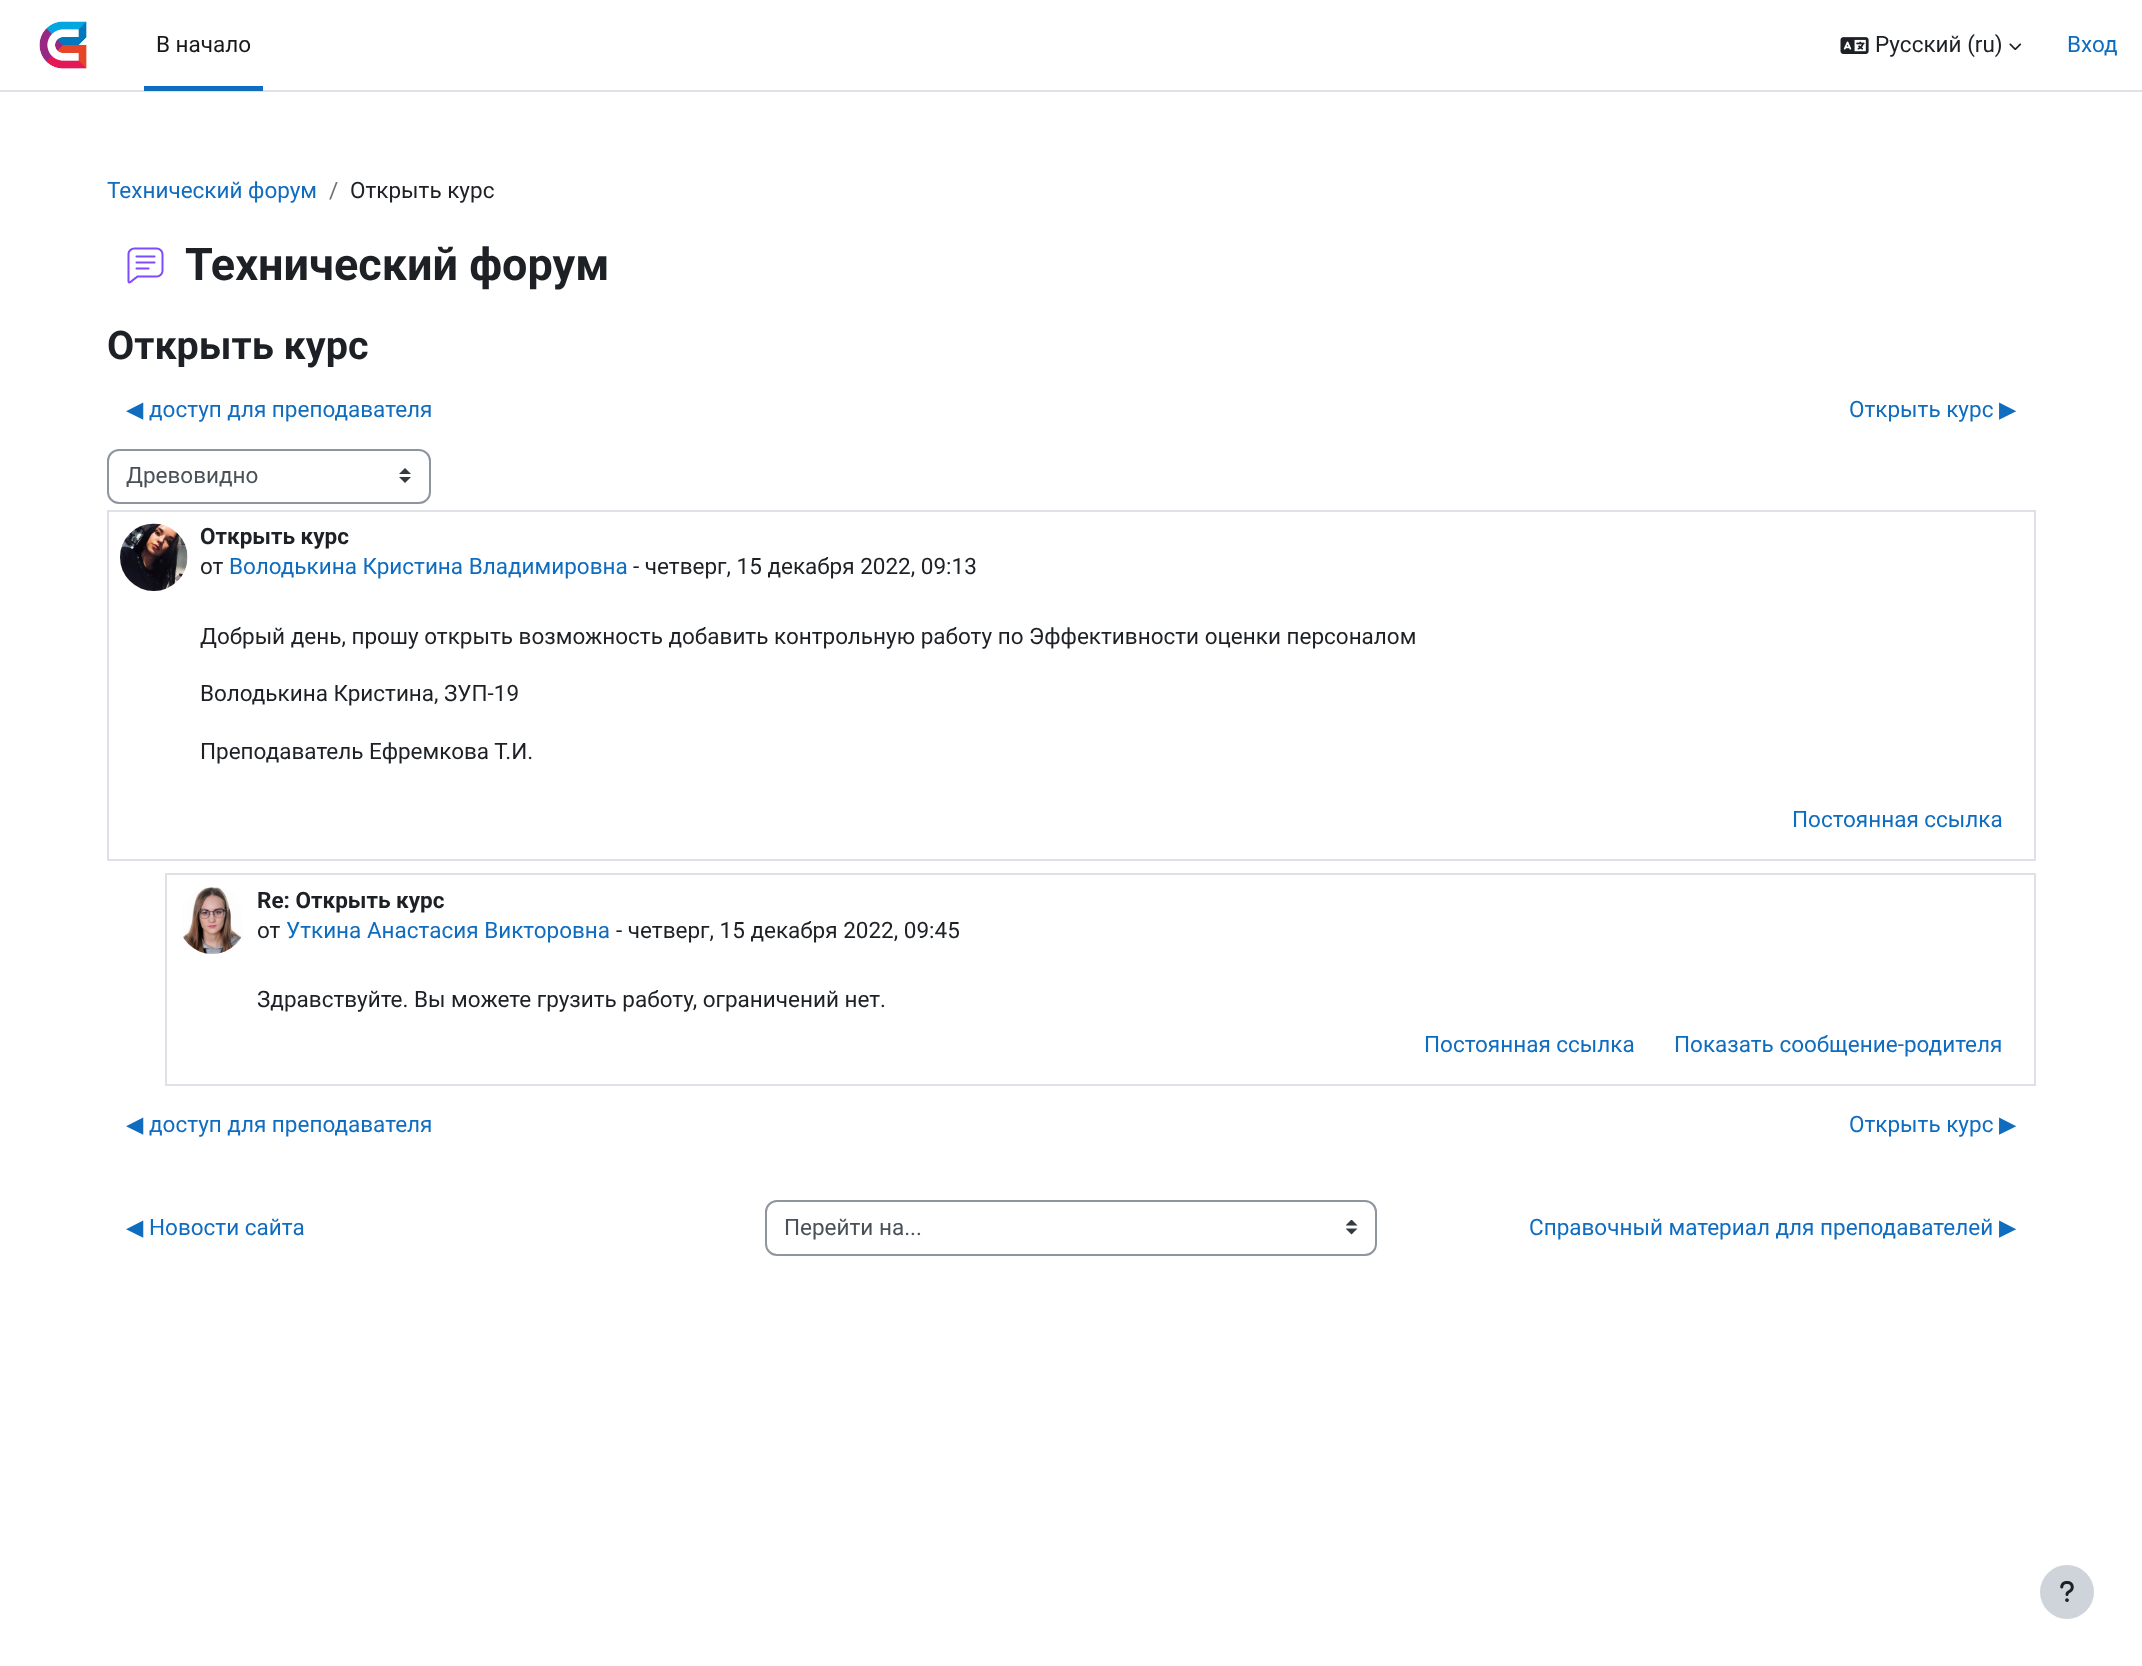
<!DOCTYPE html>
<meta charset="utf-8">
<style>body { margin: 0 } canvas { display: block }</style>
<canvas id="canvas" width="2142" height="1666"></canvas>
<img id="img1" src="img_01.png" hidden>
<img id="img2" src="img_02.png" hidden>
<img id="img3" src="img_03.png" hidden>
<img id="img4" src="img_04.png" hidden>
<img id="img5" src="img_05.png" hidden>
<img id="img6" src="img_06.png" hidden>
<img id="img7" src="img_07.png" hidden>
<img id="img8" src="img_08.png" hidden>
<img id="img9" src="img_09.png" hidden>
<script>
window.onload = function () {
	const canvas = document.getElementById("canvas");
	const ctx = canvas.getContext("2d");
	ctx.miterLimit = 4;
	ctx.fontKerning = "normal";
	function txt(s, x, y) {
		ctx.fillText(s, x, y);
	}
	function fill(x, y, w, h) {
		ctx.fillRect(x, y, w, h);
	}
	function img(id, x, y, w, h) {
		ctx.drawImage(document.getElementById(id), x, y, w, h);
	}

	ctx.fillStyle = "#FFFFFF";
	fill(0, 0, 2142, 1666);
	ctx.fillStyle = "#DEE2E6";
	fill(0, 90, 2142, 2);
	img("img1", 39, 21, 48, 48);
	ctx.fillStyle = "#0F6CBF";
	fill(144, 86, 119, 5);
	img("img2", 1840, 37, 29, 17);
	img("img3", 2009, 43, 13, 8);
	img("img4", 127, 247, 37, 37);
	img("img5", 399, 468, 12, 15);
	ctx.beginPath();
	ctx.roundRect(108, 450, 322, 53, 11);
	ctx.strokeStyle = "#8F959E";
	ctx.lineWidth = 2;
	ctx.stroke();
	ctx.strokeStyle = "#DEE2E6";
	ctx.strokeRect(108, 511, 1927, 349);
	img("img6", 120, 523, 68, 68);
	ctx.strokeRect(166, 874, 1869, 211);
	img("img7", 182, 887, 61, 67);
	img("img8", 1346, 1220, 12, 15);
	ctx.beginPath();
	ctx.roundRect(766, 1201, 610, 54, 11);
	ctx.strokeStyle = "#8F959E";
	ctx.stroke();
	ctx.fillStyle = "#CED4DA";
	ctx.beginPath();
	ctx.arc(2067, 1592, 27, 0, Math.PI * 2);
	ctx.fill();
	img("img9", 2060, 1581, 14, 21);
	ctx.font = "22.5px Roboto";
	ctx.fillStyle = "#1A1A1A";
	txt("В начало", 156, 52);
	ctx.fillStyle = "#1D2125";
	txt("Русский (ru)", 1875, 52);
	ctx.fillStyle = "#0F6CBF";
	txt("Вход", 2067, 52);
	txt("Технический форум", 107, 198);
	ctx.fillStyle = "#6A737B";
	txt("/", 329, 198);
	ctx.fillStyle = "#1D2125";
	txt("Открыть курс", 350, 198);
	ctx.font = "bold 45px Roboto";
	txt("Технический форум", 185, 280);
	ctx.font = "bold 39.5px Roboto";
	txt("Открыть курс", 107, 359);
	ctx.font = "22.5px DejaVu Sans";
	ctx.fillStyle = "#0F6CBF";
	txt("◀︎", 126, 417);
	ctx.font = "22.5px Roboto";
	txt("доступ для преподавателя", 149, 417);
	txt("Открыть курс", 1849, 417);
	ctx.font = "22.5px DejaVu Sans";
	txt("▶︎", 1999, 417);
	ctx.font = "22.5px Roboto";
	ctx.fillStyle = "#495057";
	txt("Древовидно", 126, 483);
	ctx.font = "bold 22.5px Roboto";
	ctx.fillStyle = "#1D2125";
	txt("Открыть курс", 200, 544);
	ctx.font = "22.5px Roboto";
	txt("от", 200, 574);
	ctx.fillStyle = "#0F6CBF";
	txt("Володькина Кристина Владимировна", 229, 574);
	ctx.fillStyle = "#1D2125";
	txt("- четверг, 15 декабря 2022, 09:13", 633, 574);
	txt("Добрый день, прошу открыть возможность добавить контрольную работу по Эффективности оценки персоналом", 200, 644);
	txt("Володькина Кристина, ЗУП-19", 200, 701);
	txt("Преподаватель Ефремкова Т.И.", 200, 759);
	ctx.fillStyle = "#0F6CBF";
	txt("Постоянная ссылка", 1792, 827);
	ctx.font = "bold 22.5px Roboto";
	ctx.fillStyle = "#1D2125";
	txt("Re: Открыть курс", 257, 908);
	ctx.font = "22.5px Roboto";
	txt("от", 257, 938);
	ctx.fillStyle = "#0F6CBF";
	txt("Уткина Анастасия Викторовна", 286, 938);
	ctx.fillStyle = "#1D2125";
	txt("- четверг, 15 декабря 2022, 09:45", 616, 938);
	txt("Здравствуйте. Вы можете грузить работу, ограничений нет.", 257, 1007);
	ctx.fillStyle = "#0F6CBF";
	txt("Постоянная ссылка", 1424, 1052);
	txt("Показать сообщение-родителя", 1674, 1052);
	ctx.font = "22.5px DejaVu Sans";
	txt("◀︎", 126, 1132);
	ctx.font = "22.5px Roboto";
	txt("доступ для преподавателя", 149, 1132);
	txt("Открыть курс", 1849, 1132);
	ctx.font = "22.5px DejaVu Sans";
	txt("▶︎", 1999, 1132);
	txt("◀︎", 126, 1235);
	ctx.font = "22.5px Roboto";
	txt("Новости сайта", 149, 1235);
	ctx.fillStyle = "#495057";
	txt("Перейти на...", 784, 1235);
	ctx.fillStyle = "#0F6CBF";
	txt("Справочный материал для преподавателей", 1529, 1235);
	ctx.font = "22.5px DejaVu Sans";
	txt("▶︎", 1999, 1235);
};
</script>
